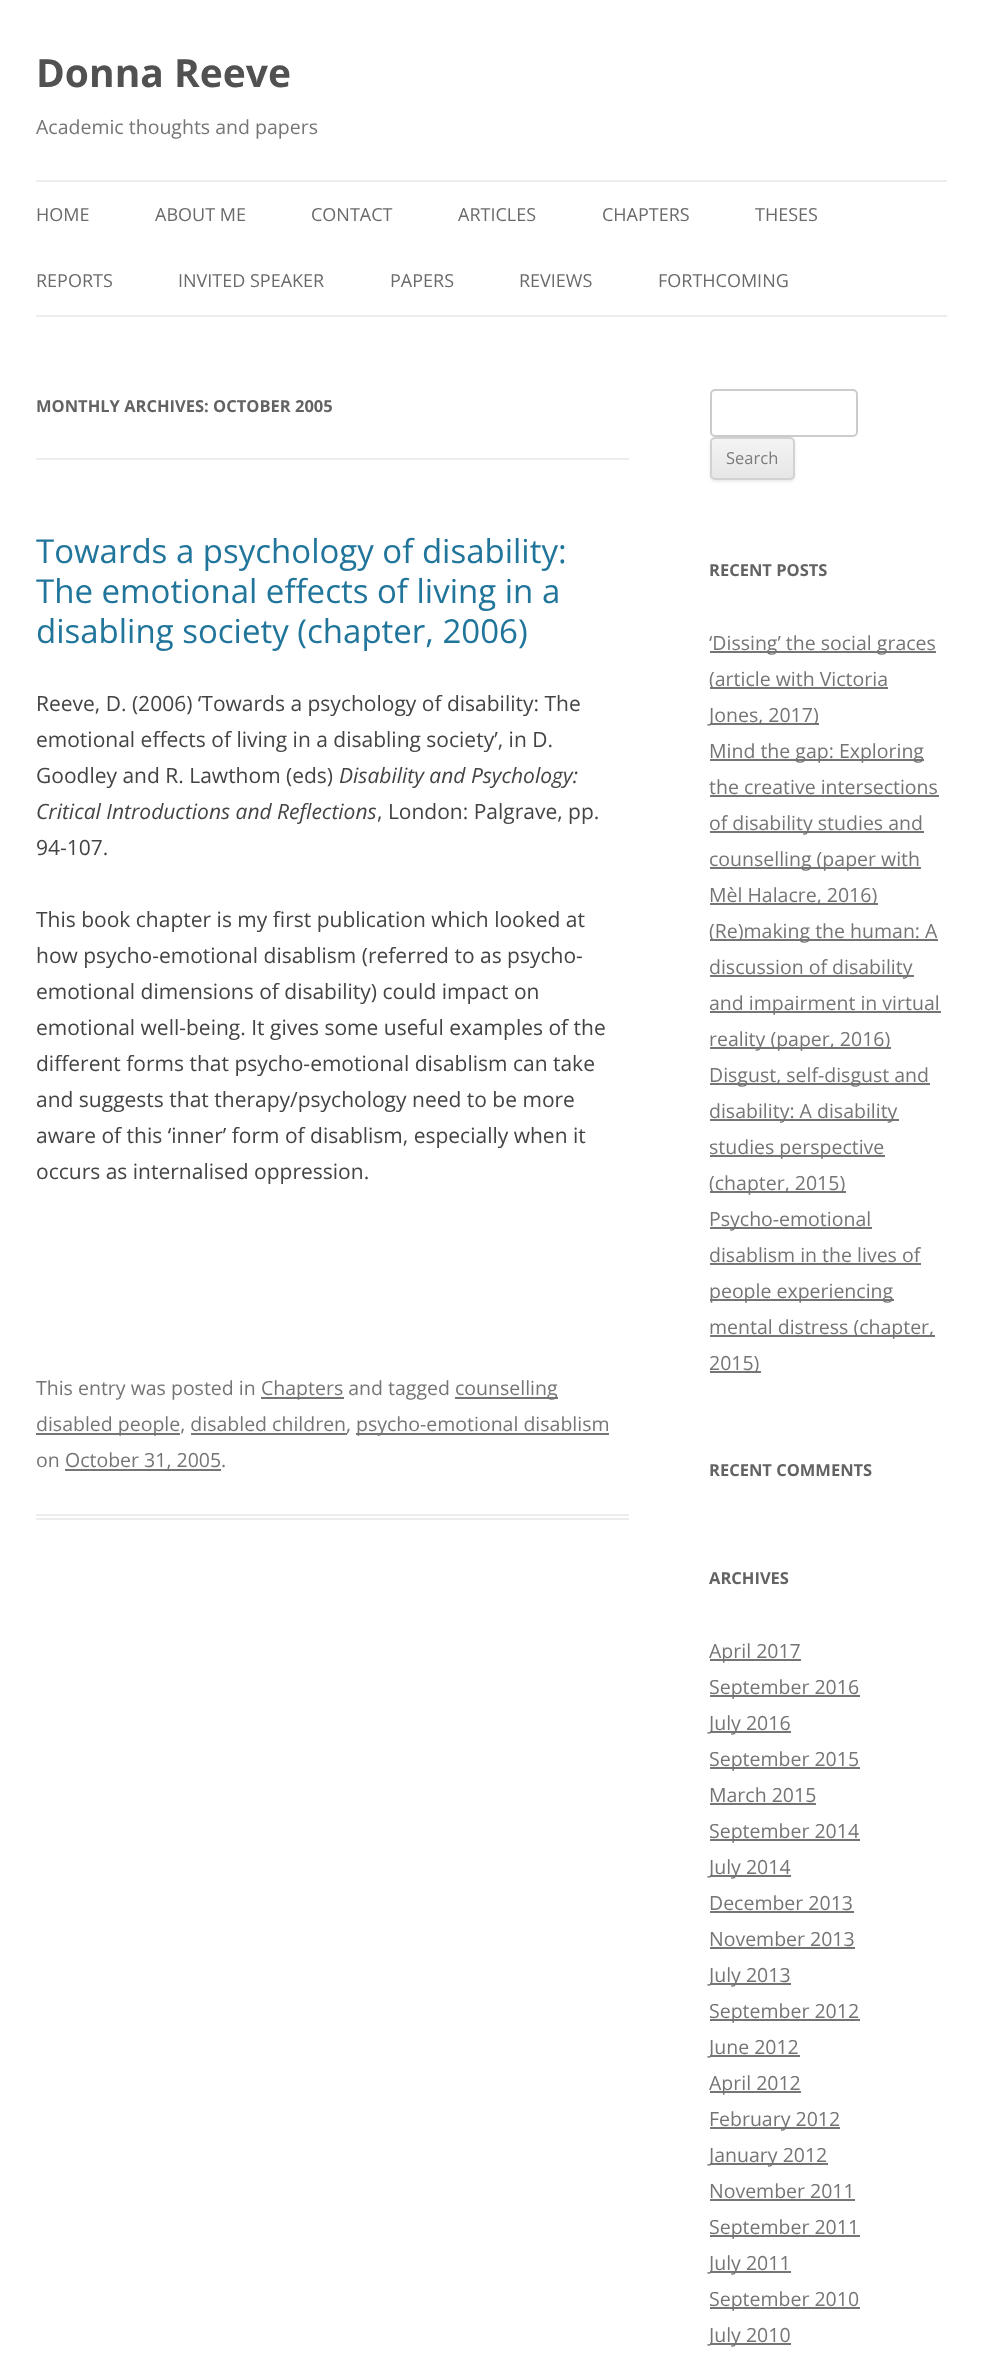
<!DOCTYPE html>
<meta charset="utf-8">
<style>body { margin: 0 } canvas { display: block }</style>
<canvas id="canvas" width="982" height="2373"></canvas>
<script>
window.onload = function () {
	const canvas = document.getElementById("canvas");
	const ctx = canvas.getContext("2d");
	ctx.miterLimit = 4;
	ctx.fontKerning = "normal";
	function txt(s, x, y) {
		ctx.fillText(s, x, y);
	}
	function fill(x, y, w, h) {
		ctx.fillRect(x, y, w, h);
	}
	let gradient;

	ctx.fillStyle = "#FFFFFF";
	fill(0, 0, 982, 2373);
	ctx.fillStyle = "#EDEDED";
	fill(36, 180, 911, 2);
	fill(36, 315, 911, 2);
	fill(36, 458, 593, 2);
	fill(36, 1514, 593, 2);
	fill(36, 1518, 593, 2);
	ctx.fillStyle = "#757575";
	fill(261, 1397, 83, 2);
	fill(455, 1397, 103, 2);
	fill(36, 1433, 144, 2);
	fill(356, 1433, 253, 2);
	fill(191, 1433, 156, 2);
	fill(65, 1469, 156, 2);
	ctx.beginPath();
	ctx.roundRect(711, 390, 146, 46, 4);
	ctx.strokeStyle = "#CCCCCC";
	ctx.lineWidth = 2;
	ctx.stroke();
	ctx.fillStyle = "rgba(64, 64, 64, 0.1)";
	ctx.filter = "blur(1.5px)";
	ctx.beginPath();
	ctx.roundRect(710, 438, 85, 44, 5);
	ctx.fill();
	ctx.filter = "none";
	ctx.save();
	ctx.beginPath();
	ctx.roundRect(710, 437, 85, 43, 5);
	ctx.clip();
	gradient = ctx.createLinearGradient(752, 438, 752, 479);
	gradient.addColorStop(0, "#F4F4F4");
	gradient.addColorStop(1, "#E6E6E6");
	ctx.fillStyle = gradient;
	fill(710, 438, 85, 41);
	ctx.restore();
	ctx.beginPath();
	ctx.roundRect(711, 438, 83, 41, 4);
	ctx.strokeStyle = "#D2D2D2";
	ctx.stroke();
	ctx.fillStyle = "#757575";
	fill(710, 651, 226, 2);
	fill(710, 687, 178, 2);
	fill(710, 723, 109, 2);
	fill(710, 759, 214, 2);
	fill(710, 795, 229, 2);
	fill(710, 831, 214, 2);
	fill(710, 867, 211, 2);
	fill(710, 903, 168, 2);
	fill(710, 939, 228, 2);
	fill(710, 975, 204, 2);
	fill(710, 1011, 231, 2);
	fill(710, 1047, 181, 2);
	fill(710, 1083, 220, 2);
	fill(710, 1119, 189, 2);
	fill(710, 1155, 175, 2);
	fill(710, 1191, 136, 2);
	fill(710, 1227, 162, 2);
	fill(710, 1263, 211, 2);
	fill(710, 1299, 184, 2);
	fill(710, 1335, 225, 2);
	fill(710, 1371, 51, 2);
	fill(710, 1659, 91, 2);
	fill(710, 1695, 150, 2);
	fill(710, 1731, 81, 2);
	fill(710, 1767, 150, 2);
	fill(710, 1803, 106, 2);
	fill(710, 1839, 150, 2);
	fill(710, 1875, 81, 2);
	fill(710, 1911, 144, 2);
	fill(710, 1947, 145, 2);
	fill(710, 1983, 81, 2);
	fill(710, 2019, 150, 2);
	fill(710, 2055, 90, 2);
	fill(710, 2091, 91, 2);
	fill(710, 2127, 130, 2);
	fill(710, 2163, 118, 2);
	fill(710, 2199, 145, 2);
	fill(710, 2235, 150, 2);
	fill(710, 2271, 81, 2);
	fill(710, 2307, 150, 2);
	fill(710, 2343, 81, 2);
	ctx.font = "bold 39px Open Sans";
	ctx.fillStyle = "#515151";
	txt("Donna Reeve", 36, 87);
	ctx.font = "19.5px Open Sans";
	ctx.fillStyle = "#757575";
	txt("Academic thoughts and papers", 36, 134);
	ctx.font = "18px Open Sans";
	ctx.fillStyle = "#6A6A6A";
	txt("HOME", 36, 221);
	txt("ABOUT ME", 155, 221);
	txt("CONTACT", 311, 221);
	txt("ARTICLES", 458, 221);
	txt("CHAPTERS", 602, 221);
	txt("THESES", 755, 221);
	txt("REPORTS", 36, 287);
	txt("INVITED SPEAKER", 178, 287);
	txt("PAPERS", 390, 287);
	txt("REVIEWS", 519, 287);
	txt("FORTHCOMING", 658, 287);
	ctx.font = "bold 16.5px Open Sans";
	ctx.fillStyle = "#636363";
	txt("MONTHLY ARCHIVES: OCTOBER 2005", 36, 412);
	ctx.font = "33px Open Sans";
	ctx.fillStyle = "#21759B";
	txt("Towards a psychology of disability:", 36, 563);
	txt("The emotional effects of living in a", 36, 603);
	txt("disabling society (chapter, 2006)", 36, 643);
	ctx.font = "21px Open Sans";
	ctx.fillStyle = "#444444";
	txt("Reeve, D. (2006) ‘Towards a psychology of disability: The", 36, 711);
	txt("emotional effects of living in a disabling society’, in D.", 36, 747);
	txt("Goodley and R. Lawthom (eds)", 36, 783);
	ctx.font = "italic 21px Open Sans";
	txt("Disability and Psychology:", 339, 783);
	txt("Critical Introductions and Reflections", 36, 819);
	ctx.font = "21px Open Sans";
	txt(", London: Palgrave, pp.", 377, 819);
	txt("94-107.", 36, 855);
	txt("This book chapter is my first publication which looked at", 36, 927);
	txt("how psycho-emotional disablism (referred to as psycho-", 36, 963);
	txt("emotional dimensions of disability) could impact on", 36, 999);
	txt("emotional well-being. It gives some useful examples of the", 36, 1035);
	txt("different forms that psycho-emotional disablism can take", 36, 1071);
	txt("and suggests that therapy/psychology need to be more", 36, 1107);
	txt("aware of this ‘inner’ form of disablism, especially when it", 36, 1143);
	txt("occurs as internalised oppression.", 36, 1179);
	ctx.font = "19.5px Open Sans";
	ctx.fillStyle = "#757575";
	txt("This entry was posted in", 36, 1395);
	txt("Chapters and tagged", 261, 1395);
	txt("counselling", 455, 1395);
	txt("disabled people, disabled children", 36, 1431);
	txt(",", 346, 1431);
	txt("psycho-emotional disablism", 356, 1431);
	txt("on", 36, 1467);
	txt("October 31, 2005.", 65, 1467);
	ctx.font = "16.5px Open Sans";
	ctx.fillStyle = "#7C7C7C";
	txt("Search", 726, 464);
	ctx.font = "bold 16.5px Open Sans";
	ctx.fillStyle = "#636363";
	txt("RECENT POSTS", 709, 576);
	ctx.font = "19.5px Open Sans";
	ctx.fillStyle = "#757575";
	txt("‘Dissing’ the social graces", 709, 650);
	txt("(article with Victoria", 709, 686);
	txt("Jones, 2017)", 709, 722);
	txt("Mind the gap: Exploring", 709, 758);
	txt("the creative intersections", 709, 794);
	txt("of disability studies and", 709, 830);
	txt("counselling (paper with", 709, 866);
	txt("Mèl Halacre, 2016)", 709, 902);
	txt("(Re)making the human: A", 709, 938);
	txt("discussion of disability", 709, 974);
	txt("and impairment in virtual", 709, 1010);
	txt("reality (paper, 2016)", 709, 1046);
	txt("Disgust, self-disgust and", 709, 1082);
	txt("disability: A disability", 709, 1118);
	txt("studies perspective", 709, 1154);
	txt("(chapter, 2015)", 709, 1190);
	txt("Psycho-emotional", 709, 1226);
	txt("disablism in the lives of", 709, 1262);
	txt("people experiencing", 709, 1298);
	txt("mental distress (chapter,", 709, 1334);
	txt("2015)", 709, 1370);
	ctx.font = "bold 16.5px Open Sans";
	ctx.fillStyle = "#636363";
	txt("RECENT COMMENTS", 709, 1476);
	txt("ARCHIVES", 709, 1584);
	ctx.font = "19.5px Open Sans";
	ctx.fillStyle = "#757575";
	txt("April 2017", 709, 1658);
	txt("September 2016", 709, 1694);
	txt("July 2016", 709, 1730);
	txt("September 2015", 709, 1766);
	txt("March 2015", 709, 1802);
	txt("September 2014", 709, 1838);
	txt("July 2014", 709, 1874);
	txt("December 2013", 709, 1910);
	txt("November 2013", 709, 1946);
	txt("July 2013", 709, 1982);
	txt("September 2012", 709, 2018);
	txt("June 2012", 709, 2054);
	txt("April 2012", 709, 2090);
	txt("February 2012", 709, 2126);
	txt("January 2012", 709, 2162);
	txt("November 2011", 709, 2198);
	txt("September 2011", 709, 2234);
	txt("July 2011", 709, 2270);
	txt("September 2010", 709, 2306);
	txt("July 2010", 709, 2342);
};
</script>
